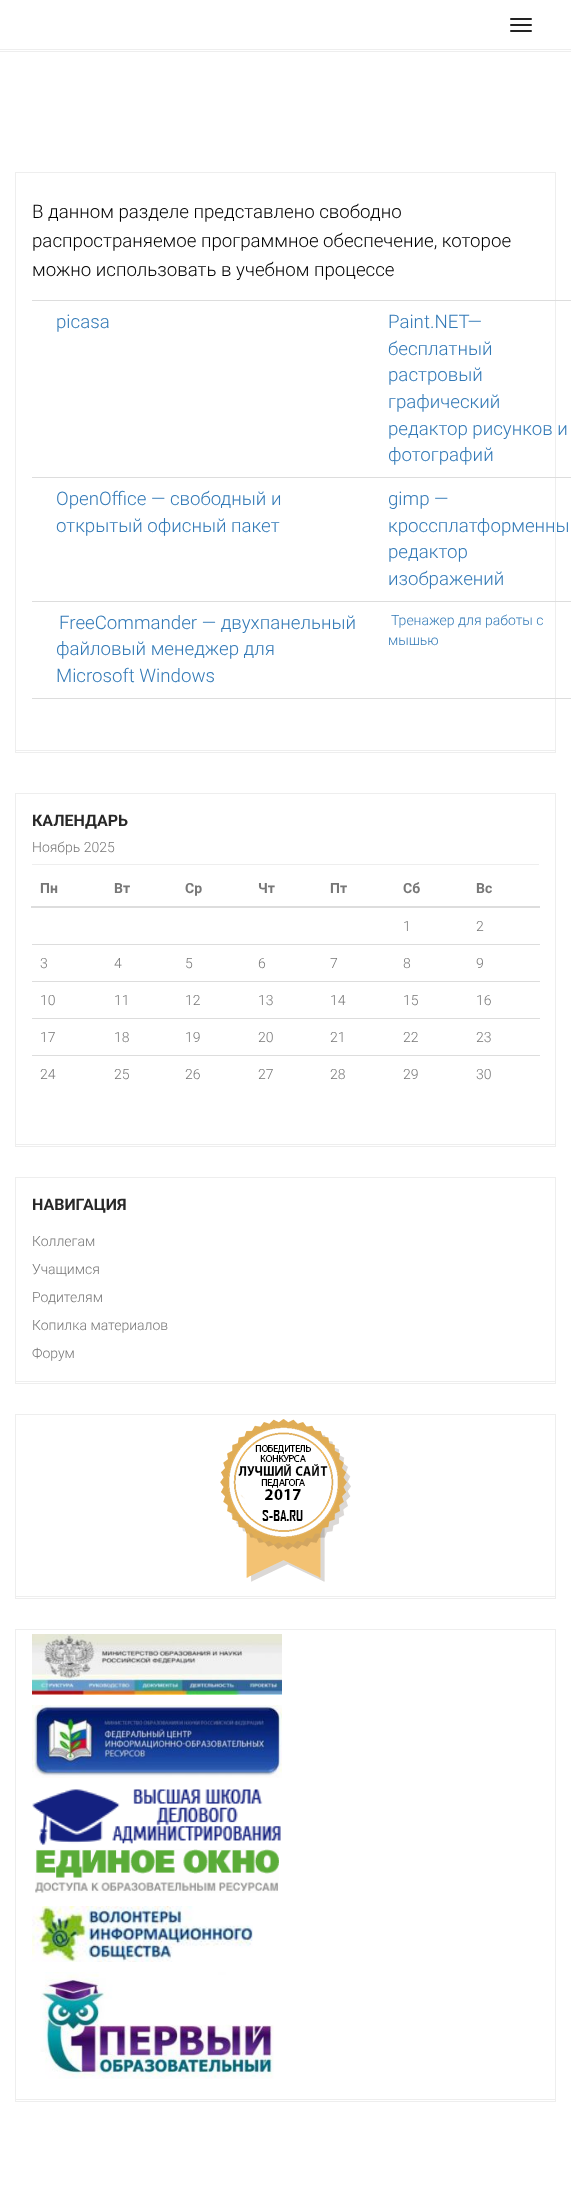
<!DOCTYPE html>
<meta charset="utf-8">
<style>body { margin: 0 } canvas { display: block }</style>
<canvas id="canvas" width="571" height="2207"></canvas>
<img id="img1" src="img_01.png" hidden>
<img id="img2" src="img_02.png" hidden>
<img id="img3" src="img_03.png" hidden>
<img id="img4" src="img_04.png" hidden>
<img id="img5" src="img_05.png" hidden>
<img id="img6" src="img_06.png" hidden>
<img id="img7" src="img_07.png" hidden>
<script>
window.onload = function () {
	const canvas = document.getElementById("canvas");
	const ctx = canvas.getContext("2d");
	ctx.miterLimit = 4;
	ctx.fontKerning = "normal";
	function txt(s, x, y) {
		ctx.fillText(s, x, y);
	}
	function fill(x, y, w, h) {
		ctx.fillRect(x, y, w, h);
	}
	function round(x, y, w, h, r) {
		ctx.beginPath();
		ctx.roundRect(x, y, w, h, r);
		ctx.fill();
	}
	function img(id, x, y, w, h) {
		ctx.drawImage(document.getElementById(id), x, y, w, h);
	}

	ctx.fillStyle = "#FFFFFF";
	fill(0, 0, 571, 2207);
	ctx.fillStyle = "#EEEEEE";
	fill(0, 51, 571, 1);
	ctx.fillStyle = "#222222";
	round(510, 18, 22, 2, 1);
	round(510, 24, 22, 2, 1);
	round(510, 30, 22, 2, 1);
	ctx.fillStyle = "#EEEEEE";
	fill(0, 49, 571, 1);
	fill(15, 172, 541, 1);
	fill(555, 172, 1, 581);
	fill(15, 750, 541, 1);
	fill(15, 752, 541, 1);
	fill(15, 172, 1, 581);
	ctx.fillStyle = "#DDDDDD";
	fill(32, 300, 539, 1);
	fill(32, 477, 539, 1);
	fill(32, 601, 539, 1);
	fill(32, 698, 539, 1);
	ctx.fillStyle = "#EEEEEE";
	fill(15, 793, 541, 1);
	fill(555, 793, 1, 354);
	fill(15, 1144, 541, 1);
	fill(15, 1146, 541, 1);
	fill(15, 793, 1, 354);
	fill(32, 864, 507, 1);
	ctx.fillStyle = "#DDDDDD";
	fill(31, 906, 509, 2);
	fill(32, 944, 508, 1);
	fill(32, 981, 508, 1);
	fill(32, 1018, 508, 1);
	fill(32, 1055, 508, 1);
	ctx.fillStyle = "#EEEEEE";
	fill(15, 1177, 541, 1);
	fill(555, 1177, 1, 207);
	fill(15, 1381, 541, 1);
	fill(15, 1383, 541, 1);
	fill(15, 1177, 1, 207);
	fill(15, 1414, 541, 1);
	fill(555, 1414, 1, 185);
	fill(15, 1596, 541, 1);
	fill(15, 1598, 541, 1);
	fill(15, 1414, 1, 185);
	img("img1", 220, 1419, 131, 163);
	fill(15, 1629, 541, 1);
	fill(555, 1629, 1, 473);
	fill(15, 2099, 541, 1);
	fill(15, 2101, 541, 1);
	fill(15, 1629, 1, 473);
	img("img2", 32, 1634, 250, 61);
	img("img3", 32, 1705, 250, 73);
	img("img4", 32, 1789, 249, 56);
	img("img5", 35, 1849, 244, 44);
	img("img6", 32, 1906, 221, 56);
	img("img7", 40, 1972, 234, 107);
	ctx.font = "300 18.7px Roboto";
	ctx.fillStyle = "#000000";
	txt("В данном разделе представлено свободно", 32, 218);
	txt("распространяемое программное обеспечение, которое", 32, 247);
	txt("можно использовать в учебном процессе", 32, 276);
	ctx.fillStyle = "#337AB7";
	txt("picasa", 56, 328);
	txt("Paint.NET—", 388, 328);
	txt("бесплатный", 388, 355);
	txt("растровый", 388, 381);
	txt("графический", 388, 408);
	txt("редактор рисунков и", 388, 435);
	txt("фотографий", 388, 461);
	txt("OpenOffice — свободный и", 56, 505);
	txt("открытый офисный пакет", 56, 532);
	txt("gimp —", 388, 505);
	txt("кроссплатформенны", 388, 532);
	txt("редактор", 388, 558);
	txt("изображений", 388, 585);
	txt("FreeCommander — двухпанельный", 59, 629);
	txt("файловый менеджер для", 56, 655);
	txt("Microsoft Windows", 56, 682);
	ctx.font = "300 14px Roboto";
	txt("Тренажер для работы с", 391, 625);
	txt("мышью", 388, 645);
	ctx.font = "bold 16px Roboto";
	ctx.fillStyle = "#282828";
	txt("КАЛЕНДАРЬ", 32, 826);
	ctx.font = "300 14px Roboto";
	ctx.fillStyle = "#777777";
	txt("Ноябрь 2025", 32, 852);
	ctx.font = "bold 14px Roboto";
	txt("Пн", 40, 893);
	txt("Вт", 114, 893);
	txt("Ср", 185, 893);
	txt("Чт", 258, 893);
	txt("Пт", 330, 893);
	txt("Сб", 403, 893);
	txt("Вс", 476, 893);
	ctx.font = "300 14px Roboto";
	txt("1", 403, 931);
	txt("2", 476, 931);
	txt("3", 40, 968);
	txt("4", 114, 968);
	txt("5", 185, 968);
	txt("6", 258, 968);
	txt("7", 330, 968);
	txt("8", 403, 968);
	txt("9", 476, 968);
	txt("10", 40, 1005);
	txt("11", 114, 1005);
	txt("12", 185, 1005);
	txt("13", 258, 1005);
	txt("14", 330, 1005);
	txt("15", 403, 1005);
	txt("16", 476, 1005);
	txt("17", 40, 1042);
	txt("18", 114, 1042);
	txt("19", 185, 1042);
	txt("20", 258, 1042);
	txt("21", 330, 1042);
	txt("22", 403, 1042);
	txt("23", 476, 1042);
	txt("24", 40, 1079);
	txt("25", 114, 1079);
	txt("26", 185, 1079);
	txt("27", 258, 1079);
	txt("28", 330, 1079);
	txt("29", 403, 1079);
	txt("30", 476, 1079);
	ctx.font = "bold 16px Roboto";
	ctx.fillStyle = "#282828";
	txt("НАВИГАЦИЯ", 32, 1210);
	ctx.font = "300 14px Roboto";
	ctx.fillStyle = "#777777";
	txt("Коллегам", 32, 1246);
	txt("Учащимся", 32, 1274);
	txt("Родителям", 32, 1302);
	txt("Копилка материалов", 32, 1330);
	txt("Форум", 32, 1358);
};
</script>
